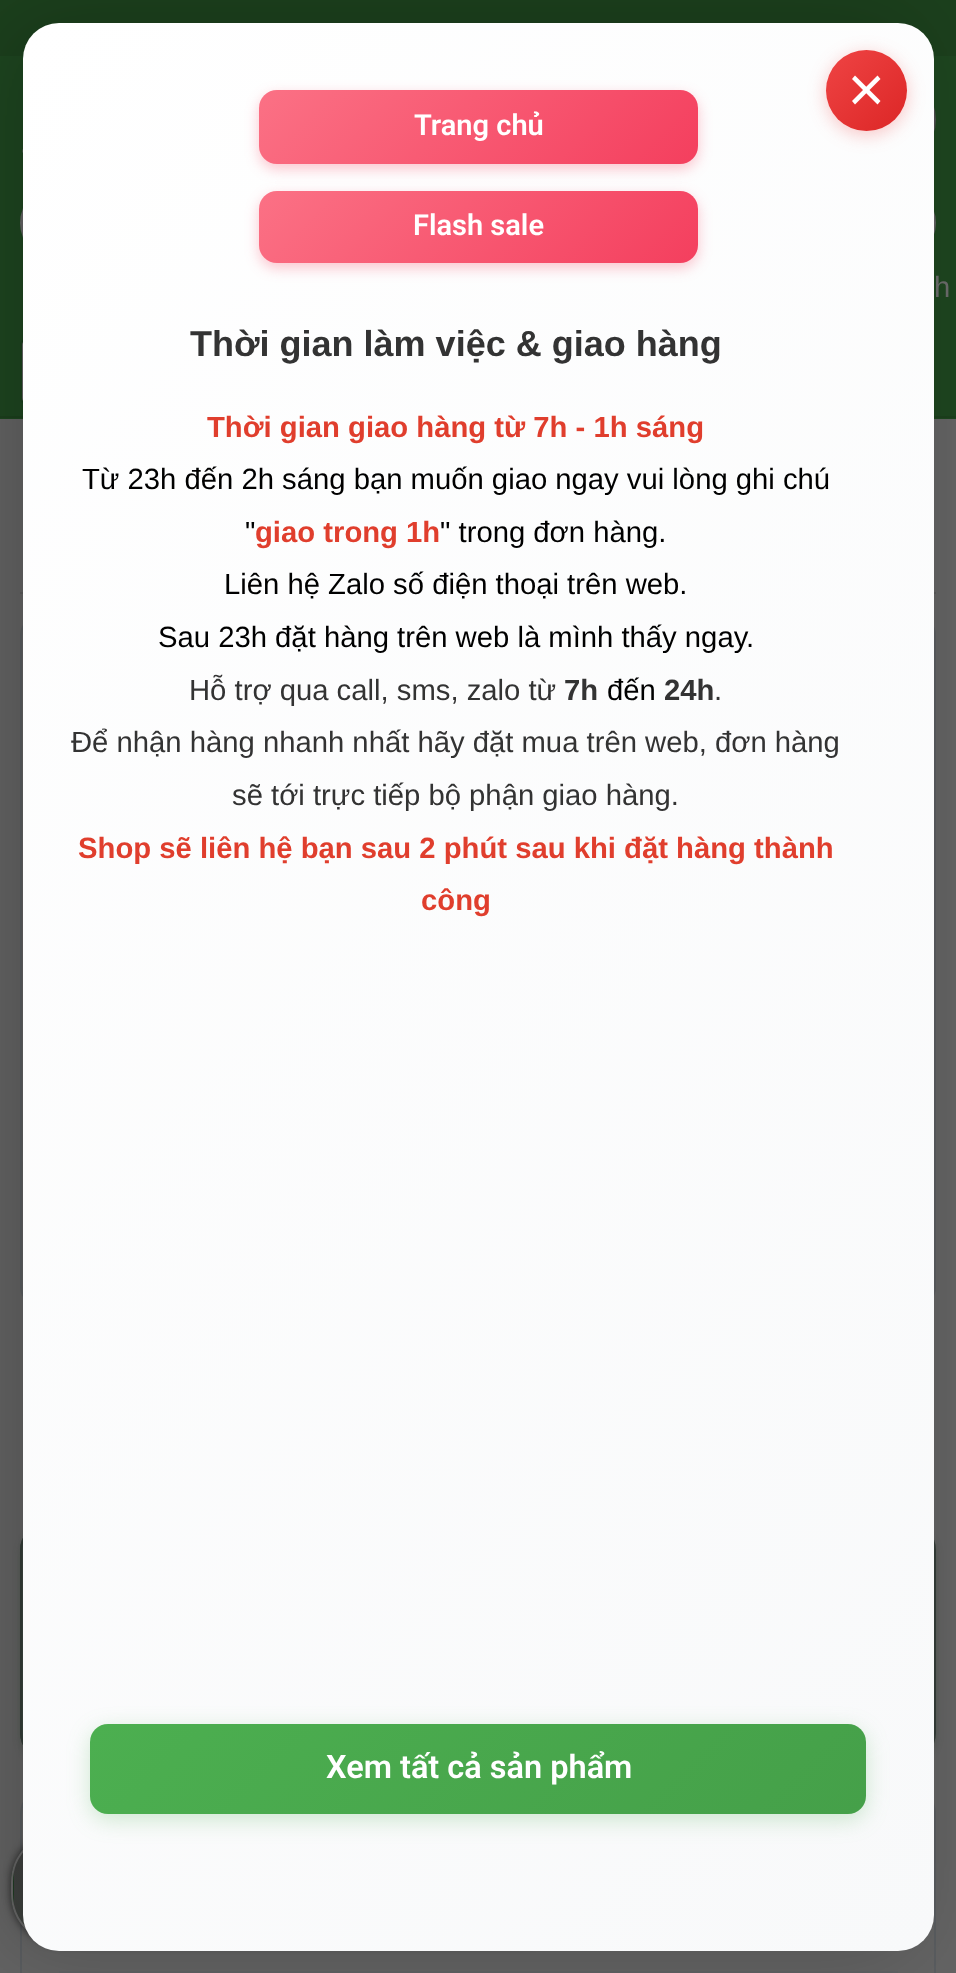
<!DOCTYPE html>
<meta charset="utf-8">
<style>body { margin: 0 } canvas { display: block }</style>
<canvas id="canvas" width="956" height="1973"></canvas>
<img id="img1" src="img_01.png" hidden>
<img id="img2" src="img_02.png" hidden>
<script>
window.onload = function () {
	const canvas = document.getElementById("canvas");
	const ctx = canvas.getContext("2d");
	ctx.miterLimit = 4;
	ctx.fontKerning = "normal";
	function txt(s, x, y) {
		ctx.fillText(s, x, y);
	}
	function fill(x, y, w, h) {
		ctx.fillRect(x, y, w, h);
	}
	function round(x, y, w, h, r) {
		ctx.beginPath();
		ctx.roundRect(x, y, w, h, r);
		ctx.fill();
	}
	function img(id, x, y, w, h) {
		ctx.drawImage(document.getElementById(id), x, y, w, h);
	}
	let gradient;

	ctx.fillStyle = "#646464";
	fill(0, 0, 956, 1973);
	ctx.fillStyle = "#1E4620";
	fill(0, 56, 956, 363);
	ctx.fillStyle = "#1C401D";
	fill(0, 0, 956, 56);
	img("img1", 22, 149, 1, 4);
	ctx.beginPath();
	ctx.arc(895.5, 119.5, 39.5, 0, Math.PI * 2);
	ctx.strokeStyle = "#4E4E4E";
	ctx.lineWidth = 2;
	ctx.stroke();
	ctx.fillStyle = "#666666";
	ctx.beginPath();
	ctx.roundRect(20, 185, 826, 76, [38, 0, 0, 38]);
	ctx.fill();
	ctx.fillStyle = "#616161";
	ctx.beginPath();
	ctx.roundRect(846, 185, 90, 76, [0, 38, 38, 0]);
	ctx.fill();
	ctx.beginPath();
	ctx.roundRect(21, 1788, 914, 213, 26);
	ctx.strokeStyle = "#5A5D60";
	ctx.stroke();
	ctx.fillStyle = "rgba(0, 0, 0, 0.63)";
	ctx.filter = "blur(4.5px)";
	ctx.beginPath();
	ctx.roundRect(11, 1832, 561, 112, 50);
	ctx.fill();
	ctx.filter = "none";
	ctx.save();
	ctx.beginPath();
	ctx.roundRect(11, 1832, 561, 112, 50);
	ctx.clip();
	gradient = ctx.createLinearGradient(-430, 1722, -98, 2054);
	gradient.addColorStop(0, "#414141");
	gradient.addColorStop(1, "#1C3A1F");
	ctx.fillStyle = gradient;
	fill(11, 1865, 3, 46);
	gradient = ctx.createLinearGradient(125, 1722, 457, 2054);
	gradient.addColorStop(0, "#414141");
	gradient.addColorStop(1, "#1C3A1F");
	ctx.fillStyle = gradient;
	fill(14, 1849, 14, 83);
	ctx.restore();
	ctx.beginPath();
	ctx.roundRect(12, 1833, 559, 110, 49);
	ctx.strokeStyle = "#666666";
	ctx.stroke();
	ctx.fillStyle = "#1C401D";
	fill(0, 416, 956, 2);
	ctx.fillStyle = "#666666";
	ctx.beginPath();
	ctx.roundRect(21, 339, 88, 65, 6);
	ctx.fill();
	ctx.strokeStyle = "#1C401D";
	ctx.stroke();
	ctx.fillStyle = "#5B5B5B";
	fill(20, 592, 916, 2);
	ctx.beginPath();
	ctx.roundRect(21, 618, 914, 686, 17);
	ctx.strokeStyle = "#5A5D60";
	ctx.stroke();
	img("img2", 22, 631, 1, 660);
	ctx.fillStyle = "rgba(39, 58, 40, 0.25)";
	ctx.filter = "blur(3.5px)";
	ctx.beginPath();
	ctx.roundRect(20, 1528, 916, 236, 27);
	ctx.fill();
	ctx.filter = "none";
	ctx.save();
	ctx.beginPath();
	ctx.roundRect(20, 1523, 916, 237, 27);
	ctx.clip();
	gradient = ctx.createLinearGradient(-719, 1356, -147, 1927);
	gradient.addColorStop(0, "#474747");
	gradient.addColorStop(1, "#3A463F");
	ctx.fillStyle = gradient;
	fill(20, 1537, 3, 209);
	ctx.restore();
	ctx.beginPath();
	ctx.roundRect(21, 1524, 914, 235, 26);
	ctx.strokeStyle = "#343D38";
	ctx.stroke();
	ctx.fillStyle = "#606264";
	fill(59, 1971, 839, 2);
	ctx.fillStyle = "rgba(0, 0, 0, 0.2)";
	ctx.filter = "blur(45px)";
	ctx.beginPath();
	ctx.roundRect(5, 23, 911, 1928, 36);
	ctx.fill();
	ctx.filter = "none";
	gradient = ctx.createLinearGradient(-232, 277, 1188, 1697);
	gradient.addColorStop(0, "#FFFFFF");
	gradient.addColorStop(1, "#F8F9FA");
	ctx.fillStyle = gradient;
	round(23, 23, 911, 1928, 36);
	ctx.fillStyle = "rgba(244, 63, 94, 0.3)";
	ctx.filter = "blur(7px)";
	ctx.beginPath();
	ctx.roundRect(259, 95, 439, 74, 18);
	ctx.fill();
	ctx.filter = "none";
	gradient = ctx.createLinearGradient(350, -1.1, 606, 255);
	gradient.addColorStop(0, "#FB7185");
	gradient.addColorStop(1, "#F43F5E");
	ctx.fillStyle = gradient;
	round(259, 90, 439, 74, 18);
	ctx.fillStyle = "rgba(244, 63, 94, 0.3)";
	ctx.filter = "blur(7px)";
	ctx.beginPath();
	ctx.roundRect(259, 196, 439, 72, 18);
	ctx.fill();
	ctx.filter = "none";
	gradient = ctx.createLinearGradient(350, 100, 606, 355);
	gradient.addColorStop(0, "#FB7185");
	gradient.addColorStop(1, "#F43F5E");
	ctx.fillStyle = gradient;
	round(259, 191, 439, 72, 18);
	ctx.fillStyle = "rgba(239, 68, 68, 0.3)";
	ctx.filter = "blur(9px)";
	ctx.beginPath();
	ctx.roundRect(826, 54, 81, 81, 40.5);
	ctx.fill();
	ctx.filter = "none";
	gradient = ctx.createLinearGradient(826, 50, 907, 131);
	gradient.addColorStop(0, "#EF4444");
	gradient.addColorStop(1, "#DC2626");
	ctx.fillStyle = gradient;
	ctx.beginPath();
	ctx.arc(866.5, 90.5, 40.5, 0, Math.PI * 2);
	ctx.fill();
	ctx.fillStyle = "#FFFFFF";
	ctx.beginPath();
	ctx.moveTo(855, 75.5);
	ctx.lineTo(880.5, 101);
	ctx.lineTo(877.5, 104.5);
	ctx.lineTo(852, 79);
	ctx.closePath();
	ctx.fill();
	ctx.beginPath();
	ctx.moveTo(852, 101);
	ctx.lineTo(877.5, 75.5);
	ctx.lineTo(880.5, 79);
	ctx.lineTo(855, 104.5);
	ctx.closePath();
	ctx.fill();
	ctx.fillStyle = "rgba(76, 175, 80, 0.25)";
	ctx.filter = "blur(11px)";
	ctx.beginPath();
	ctx.roundRect(90, 1730, 776, 90, 18);
	ctx.fill();
	ctx.filter = "none";
	gradient = ctx.createLinearGradient(262, 1552, 695, 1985);
	gradient.addColorStop(0, "#4CAF50");
	gradient.addColorStop(1, "#45A049");
	ctx.fillStyle = gradient;
	round(90, 1724, 776, 90, 18);
	ctx.font = "600 29px Roboto";
	ctx.fillStyle = "#FFFFFF";
	txt("Trang chủ", 414, 135);
	txt("Flash sale", 413, 235);
	ctx.font = "bold 36px Liberation Sans";
	ctx.fillStyle = "#333333";
	txt("Thời gian làm việc & giao hàng", 190, 356);
	ctx.font = "bold 29.25px Liberation Sans";
	ctx.fillStyle = "#E03E2D";
	txt("Thời gian giao hàng từ 7h - 1h sáng", 207, 437);
	ctx.font = "29.25px Liberation Sans";
	ctx.fillStyle = "#000000";
	txt("Từ 23h đến 2h sáng bạn muốn giao ngay vui lòng ghi chú", 82, 489);
	txt("\"", 245, 542);
	ctx.font = "bold 29.25px Liberation Sans";
	ctx.fillStyle = "#E03E2D";
	txt("giao trong 1h", 255, 542);
	ctx.font = "29.25px Liberation Sans";
	ctx.fillStyle = "#000000";
	txt("\" trong đơn hàng.", 440, 542);
	txt("Liên hệ Zalo số điện thoại trên web.", 224, 594);
	txt("Sau 23h đặt hàng trên web là mình thấy ngay.", 158, 647);
	ctx.fillStyle = "#333333";
	txt("Hỗ trợ qua call, sms, zalo từ", 189, 700);
	ctx.font = "bold 29.25px Liberation Sans";
	txt("7h", 564, 700);
	ctx.font = "29.25px Liberation Sans";
	ctx.fillStyle = "#000000";
	txt("đến", 607, 700);
	ctx.font = "bold 29.25px Liberation Sans";
	ctx.fillStyle = "#333333";
	txt("24h", 664, 700);
	ctx.font = "29.25px Liberation Sans";
	txt(".", 714, 700);
	txt("Để nhận hàng nhanh nhất hãy đặt mua trên web, đơn hàng", 71, 752);
	txt("sẽ tới trực tiếp bộ phận giao hàng.", 232, 805);
	ctx.font = "bold 29.25px Liberation Sans";
	ctx.fillStyle = "#E03E2D";
	txt("Shop sẽ liên hệ bạn sau 2 phút sau khi đặt hàng thành", 78, 858);
	txt("công", 421, 910);
	ctx.font = "600 32.5px Roboto";
	ctx.fillStyle = "#FFFFFF";
	txt("Xem tất cả sản phẩm", 326, 1778);
	ctx.font = "29.25px Liberation Sans";
	ctx.fillStyle = "#666666";
	txt("h", 934, 297);
};
</script>
